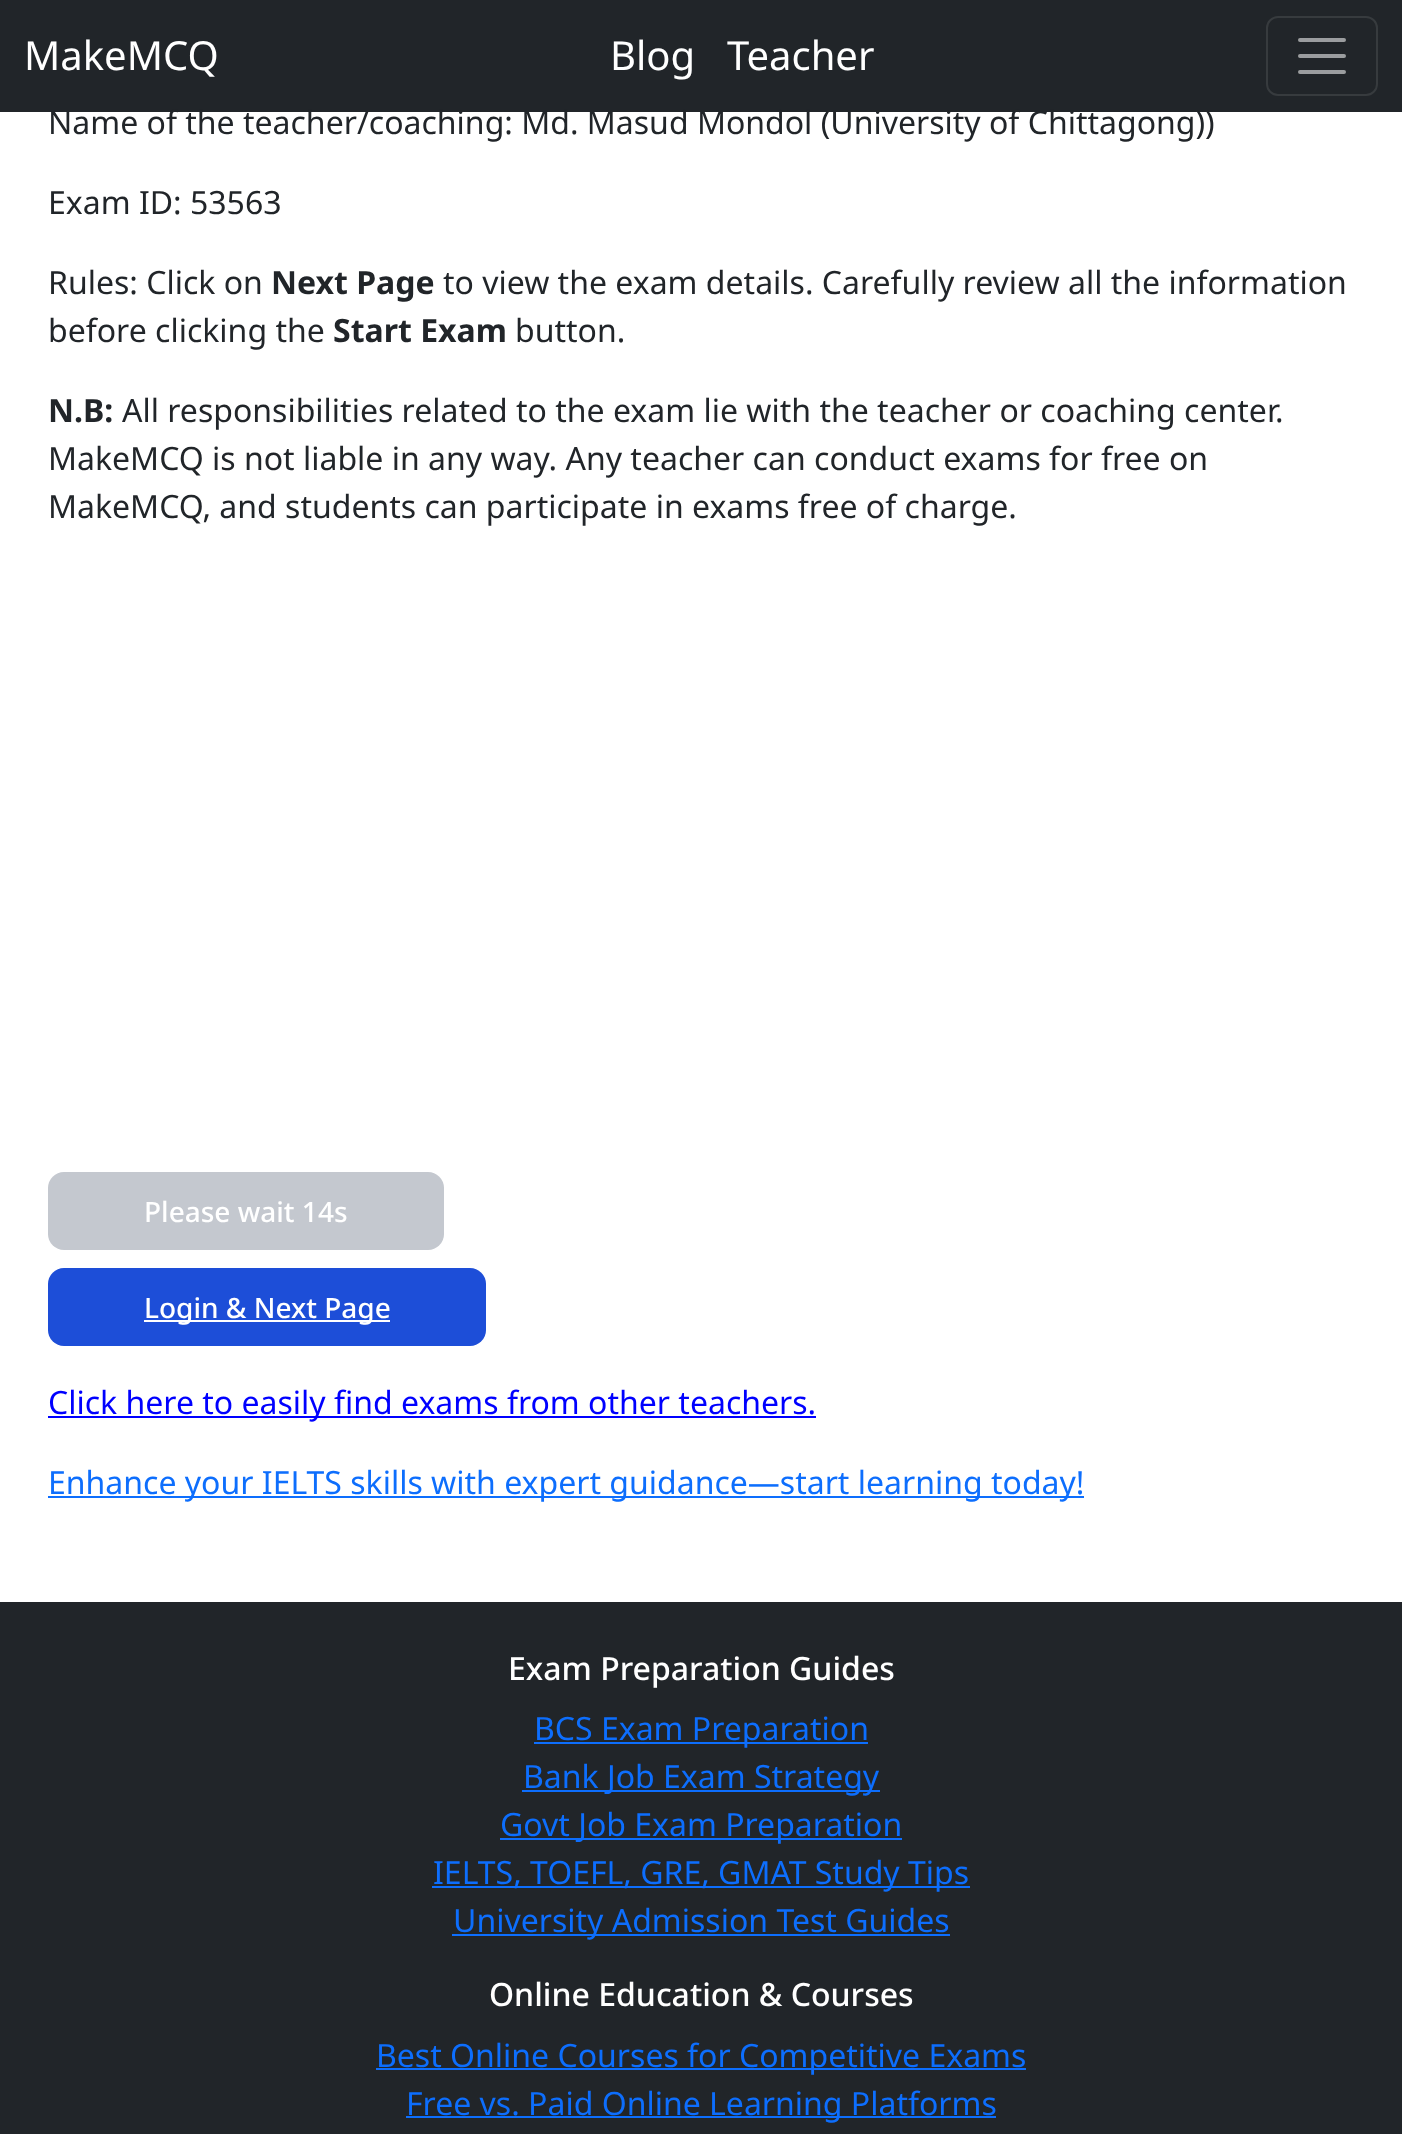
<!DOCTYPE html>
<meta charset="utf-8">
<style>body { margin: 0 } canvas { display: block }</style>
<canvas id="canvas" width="1402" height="2134"></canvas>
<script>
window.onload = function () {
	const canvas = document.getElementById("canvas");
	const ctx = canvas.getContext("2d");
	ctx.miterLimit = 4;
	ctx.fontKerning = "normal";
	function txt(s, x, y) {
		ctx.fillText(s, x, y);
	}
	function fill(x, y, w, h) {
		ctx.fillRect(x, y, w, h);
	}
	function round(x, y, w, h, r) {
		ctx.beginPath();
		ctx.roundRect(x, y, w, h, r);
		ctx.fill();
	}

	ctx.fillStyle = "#FFFFFF";
	fill(0, 0, 1402, 2134);
	ctx.fillStyle = "#212529";
	fill(0, 0, 1402, 112);
	ctx.beginPath();
	ctx.roundRect(1267, 17, 110, 78, 11);
	ctx.strokeStyle = "#373B3E";
	ctx.lineWidth = 2;
	ctx.stroke();
	ctx.beginPath();
	ctx.moveTo(1300, 40);
	ctx.lineTo(1344, 40);
	ctx.moveTo(1300, 56);
	ctx.lineTo(1344, 56);
	ctx.moveTo(1300, 72);
	ctx.lineTo(1344, 72);
	ctx.strokeStyle = "#9B9D9F";
	ctx.lineWidth = 4;
	ctx.lineCap = "round";
	ctx.stroke();
	ctx.fillStyle = "#C4C8CF";
	round(48, 1172, 396, 78, 16);
	ctx.fillStyle = "#1D4ED8";
	round(48, 1268, 438, 78, 16);
	ctx.fillStyle = "#FFFFFF";
	fill(144, 1320, 246, 2);
	ctx.fillStyle = "#0000FF";
	fill(48, 1416, 768, 2);
	ctx.fillStyle = "#0D6EFD";
	fill(48, 1496, 1036, 2);
	ctx.fillStyle = "#212529";
	fill(0, 1602, 1402, 532);
	ctx.fillStyle = "#0D6EFD";
	fill(534, 1742, 334, 2);
	fill(522, 1790, 358, 2);
	fill(500, 1838, 402, 2);
	fill(432, 1886, 538, 2);
	fill(452, 1934, 498, 2);
	fill(376, 2068, 650, 2);
	fill(406, 2116, 590, 2);
	ctx.font = "40px Noto Sans";
	ctx.fillStyle = "#FFFFFF";
	txt("MakeMCQ", 24, 70);
	txt("Blog", 610, 70);
	txt("Teacher", 727, 70);
	ctx.font = "32px Noto Sans";
	ctx.fillStyle = "#212529";
	txt("Name of the teacher/coaching: Md. Masud Mondol (University of Chittagong))", 48, 134);
	txt("Exam ID: 53563", 48, 214);
	txt("Rules: Click on", 48, 294);
	ctx.font = "bold 32px Noto Sans";
	txt("Next Page", 271, 294);
	ctx.font = "32px Noto Sans";
	txt("to view the exam details. Carefully review all the information", 443, 294);
	txt("before clicking the", 48, 342);
	ctx.font = "bold 32px Noto Sans";
	txt("Start Exam", 333, 342);
	ctx.font = "32px Noto Sans";
	txt("button.", 515, 342);
	ctx.font = "bold 32px Noto Sans";
	txt("N.B:", 48, 422);
	ctx.font = "32px Noto Sans";
	txt("All responsibilities related to the exam lie with the teacher or coaching center.", 122, 422);
	txt("MakeMCQ is not liable in any way. Any teacher can conduct exams for free on", 48, 470);
	txt("MakeMCQ, and students can participate in exams free of charge.", 48, 518);
	ctx.font = "500 28px Noto Sans";
	ctx.fillStyle = "#FFFFFF";
	txt("Please wait 14s", 144, 1222);
	txt("Login & Next Page", 144, 1318);
	ctx.font = "32px Noto Sans";
	ctx.fillStyle = "#0000FF";
	txt("Click here to easily find exams from other teachers.", 48, 1414);
	ctx.fillStyle = "#0D6EFD";
	txt("Enhance your IELTS skills with expert guidance—start learning today!", 48, 1494);
	ctx.font = "500 32px Noto Sans";
	ctx.fillStyle = "#FFFFFF";
	txt("Exam Preparation Guides", 508, 1680);
	ctx.font = "32px Noto Sans";
	ctx.fillStyle = "#0D6EFD";
	txt("BCS Exam Preparation", 534, 1740);
	txt("Bank Job Exam Strategy", 523, 1788);
	txt("Govt Job Exam Preparation", 500, 1836);
	txt("IELTS, TOEFL, GRE, GMAT Study Tips", 433, 1884);
	txt("University Admission Test Guides", 453, 1932);
	ctx.font = "500 32px Noto Sans";
	ctx.fillStyle = "#FFFFFF";
	txt("Online Education & Courses", 489, 2006);
	ctx.font = "32px Noto Sans";
	ctx.fillStyle = "#0D6EFD";
	txt("Best Online Courses for Competitive Exams", 376, 2067);
	txt("Free vs. Paid Online Learning Platforms", 406, 2115);
};
</script>
